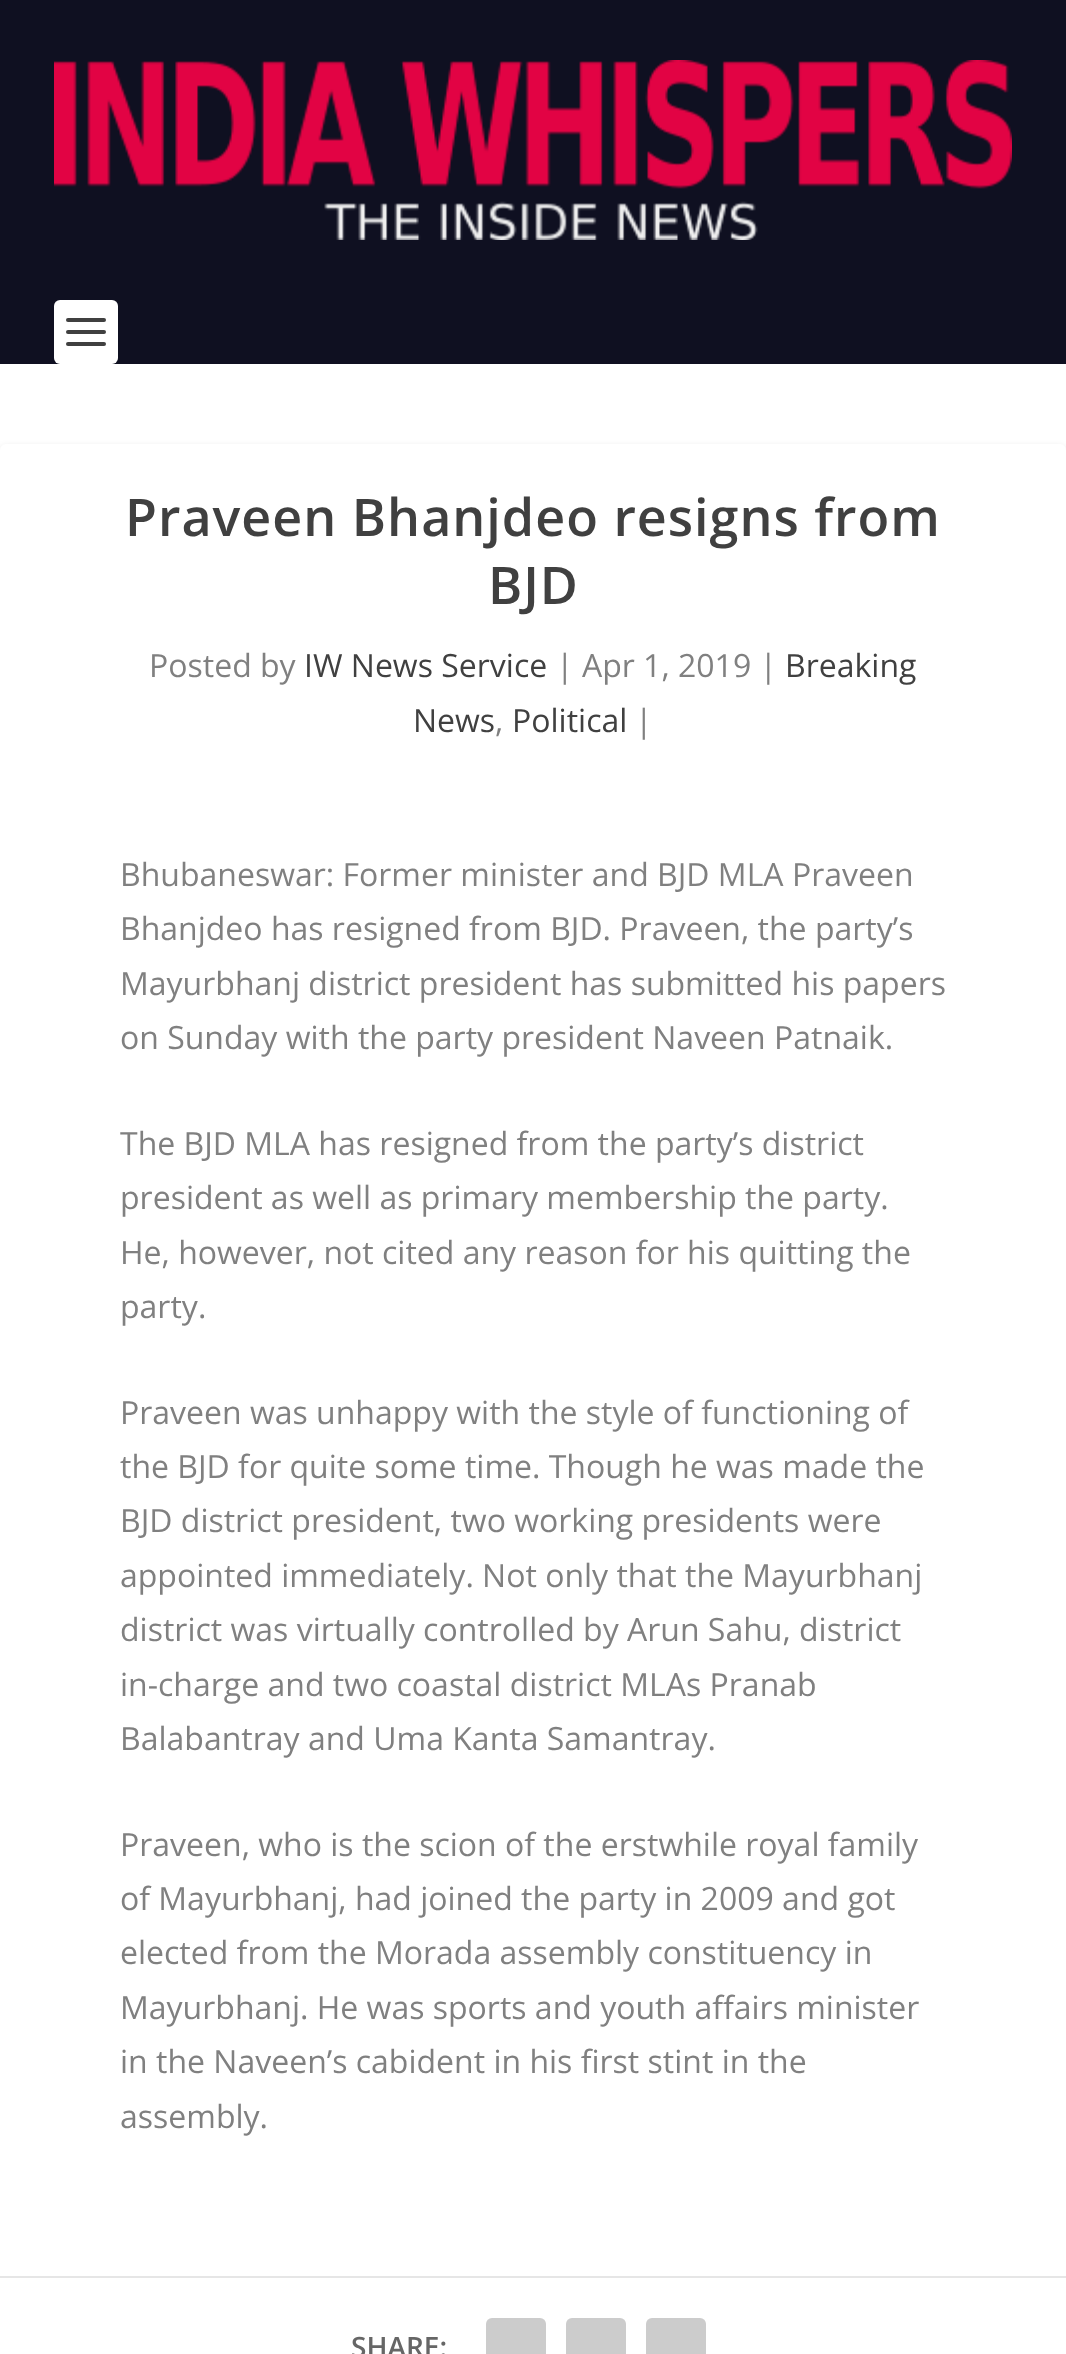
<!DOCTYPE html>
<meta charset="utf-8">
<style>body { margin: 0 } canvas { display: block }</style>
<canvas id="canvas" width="1066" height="2354"></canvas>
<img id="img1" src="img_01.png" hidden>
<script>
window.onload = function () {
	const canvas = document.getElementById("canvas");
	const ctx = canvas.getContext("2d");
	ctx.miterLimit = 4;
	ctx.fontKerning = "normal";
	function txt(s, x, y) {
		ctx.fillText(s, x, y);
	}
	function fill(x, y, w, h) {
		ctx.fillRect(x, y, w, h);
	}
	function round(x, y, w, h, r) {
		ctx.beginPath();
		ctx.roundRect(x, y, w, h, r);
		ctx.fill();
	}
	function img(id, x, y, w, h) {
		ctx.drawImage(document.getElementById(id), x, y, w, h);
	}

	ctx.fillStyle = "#FFFFFF";
	fill(0, 0, 1066, 2354);
	ctx.fillStyle = "#0F1021";
	fill(0, 0, 1066, 364);
	img("img1", 54, 60, 958, 180);
	ctx.fillStyle = "#FFFFFF";
	round(54, 300, 64, 64, 6);
	ctx.fillStyle = "#404040";
	round(66, 318, 40, 4, 2);
	round(66, 330, 40, 4, 2);
	round(66, 342, 40, 4, 2);
	ctx.fillStyle = "rgba(0, 0, 0, 0.1)";
	ctx.filter = "blur(3px)";
	ctx.beginPath();
	ctx.roundRect(0, 446, 1066, 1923, 6);
	ctx.fill();
	ctx.filter = "none";
	ctx.fillStyle = "#FFFFFF";
	round(0, 444, 1066, 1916, 6);
	ctx.fillStyle = "#E6E6E6";
	fill(0, 2276, 1066, 2);
	ctx.fillStyle = "#CCCCCC";
	round(486, 2318, 60, 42, 6);
	round(566, 2318, 60, 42, 6);
	round(646, 2318, 60, 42, 6);
	ctx.letterSpacing = "1px";
	ctx.font = "600 52px Open Sans";
	ctx.fillStyle = "#404040";
	txt("Praveen Bhanjdeo resigns from", 125, 536);
	txt("BJD", 488, 604);
	ctx.letterSpacing = "0px";
	ctx.font = "32px Open Sans";
	ctx.fillStyle = "#808080";
	txt("Posted by", 149, 677);
	ctx.fillStyle = "#404040";
	txt("IW News Service", 304, 677);
	ctx.fillStyle = "#808080";
	txt("| Apr 1, 2019 |", 556, 677);
	ctx.fillStyle = "#404040";
	txt("Breaking", 785, 677);
	txt("News", 413, 732);
	ctx.fillStyle = "#808080";
	txt(",", 495, 732);
	ctx.fillStyle = "#404040";
	txt("Political", 512, 732);
	ctx.fillStyle = "#808080";
	txt("|", 635, 732);
	txt("Bhubaneswar: Former minister and BJD MLA Praveen", 120, 886);
	txt("Bhanjdeo has resigned from BJD. Praveen, the party’s", 120, 940);
	txt("Mayurbhanj district president has submitted his papers", 120, 995);
	txt("on Sunday with the party president Naveen Patnaik.", 120, 1049);
	txt("The BJD MLA has resigned from the party’s district", 120, 1155);
	txt("president as well as primary membership the party.", 120, 1209);
	txt("He, however, not cited any reason for his quitting the", 120, 1264);
	txt("party.", 120, 1318);
	txt("Praveen was unhappy with the style of functioning of", 120, 1424);
	txt("the BJD for quite some time. Though he was made the", 120, 1478);
	txt("BJD district president, two working presidents were", 120, 1532);
	txt("appointed immediately. Not only that the Mayurbhanj", 120, 1587);
	txt("district was virtually controlled by Arun Sahu, district", 120, 1641);
	txt("in-charge and two coastal district MLAs Pranab", 120, 1696);
	txt("Balabantray and Uma Kanta Samantray.", 120, 1750);
	txt("Praveen, who is the scion of the erstwhile royal family", 120, 1856);
	txt("of Mayurbhanj, had joined the party in 2009 and got", 120, 1910);
	txt("elected from the Morada assembly constituency in", 120, 1964);
	txt("Mayurbhanj. He was sports and youth affairs minister", 120, 2019);
	txt("in the Naveen’s cabident in his first stint in the", 120, 2073);
	txt("assembly.", 120, 2128);
	ctx.font = "600 28px Open Sans";
	ctx.fillStyle = "#666666";
	txt("SHARE:", 351, 2357);
};
</script>
